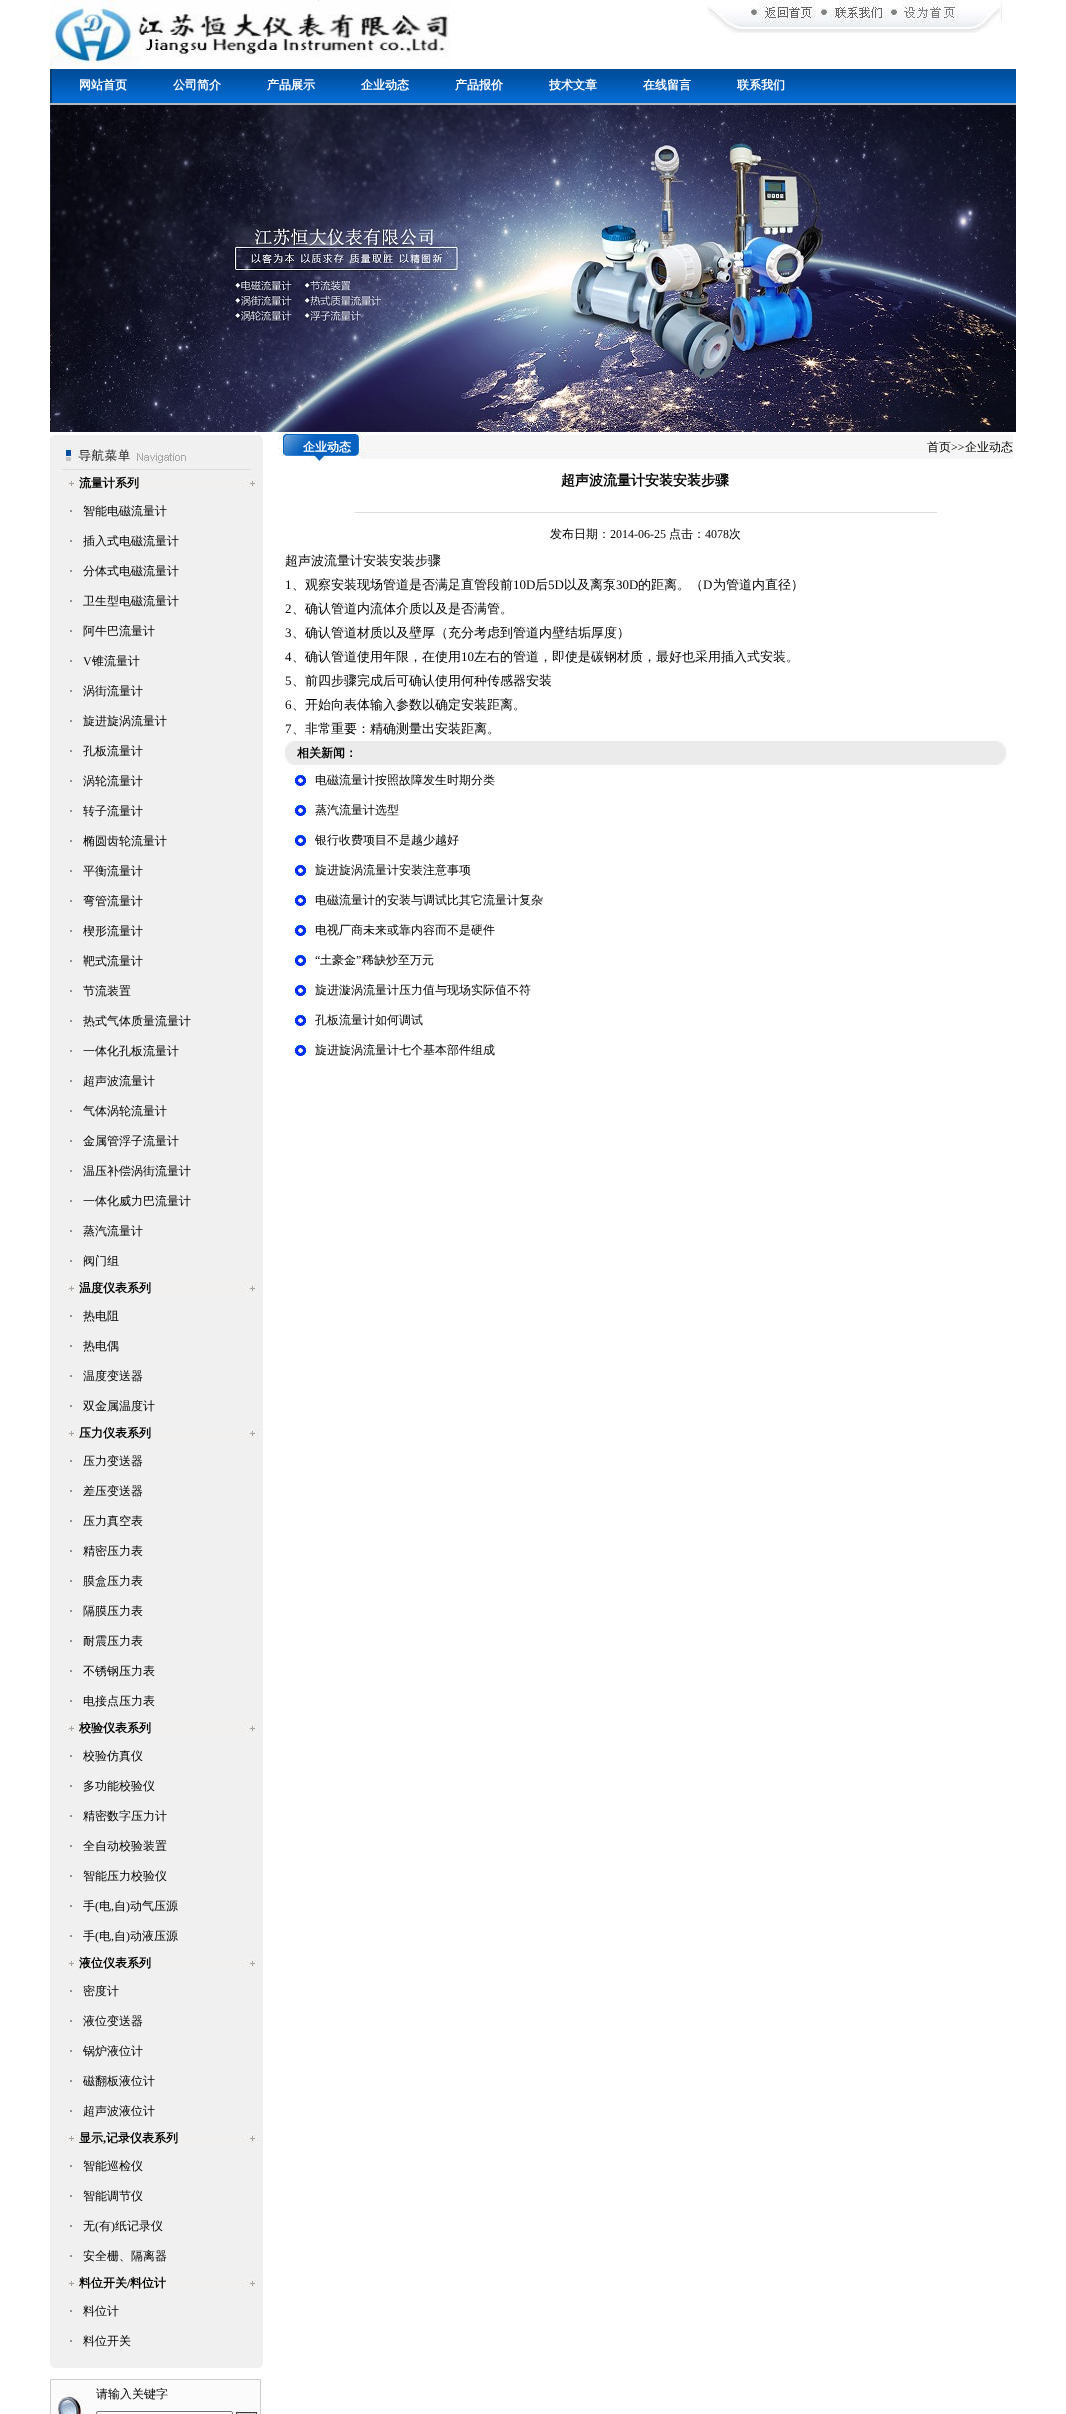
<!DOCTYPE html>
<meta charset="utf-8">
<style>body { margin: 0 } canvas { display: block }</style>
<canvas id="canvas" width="1066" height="2414"></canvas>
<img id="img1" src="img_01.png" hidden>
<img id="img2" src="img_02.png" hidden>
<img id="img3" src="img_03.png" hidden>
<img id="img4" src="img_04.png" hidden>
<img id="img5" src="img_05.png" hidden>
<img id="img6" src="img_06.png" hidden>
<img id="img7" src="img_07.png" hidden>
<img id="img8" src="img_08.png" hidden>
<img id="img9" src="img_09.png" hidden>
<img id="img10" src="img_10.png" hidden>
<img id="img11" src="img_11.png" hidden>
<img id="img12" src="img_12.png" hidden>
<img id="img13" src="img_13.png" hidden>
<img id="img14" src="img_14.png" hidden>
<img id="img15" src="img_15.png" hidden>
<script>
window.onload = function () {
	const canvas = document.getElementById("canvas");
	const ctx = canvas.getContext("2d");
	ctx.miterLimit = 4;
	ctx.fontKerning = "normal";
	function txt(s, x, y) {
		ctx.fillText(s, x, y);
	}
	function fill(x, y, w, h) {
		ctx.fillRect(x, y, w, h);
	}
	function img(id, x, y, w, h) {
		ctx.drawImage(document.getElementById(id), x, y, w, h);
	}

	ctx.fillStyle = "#FFFFFF";
	fill(0, 0, 1066, 2414);
	img("img1", 50, 0, 400, 66);
	img("img2", 707, 0, 300, 33);
	img("img3", 50, 69, 966, 36);
	img("img4", 52, 69, 964, 34);
	img("img5", 50, 105, 966, 327);
	img("img6", 50, 435, 213, 36);
	ctx.fillStyle = "#F0F0F0";
	fill(50, 471, 213, 1885);
	img("img7", 62, 479, 197, 8);
	img("img7", 62, 1284, 197, 8);
	img("img7", 62, 1429, 197, 8);
	img("img7", 62, 1724, 197, 8);
	img("img7", 62, 1959, 197, 8);
	img("img7", 62, 2134, 197, 8);
	img("img7", 62, 2279, 197, 8);
	img("img8", 50, 2356, 213, 12);
	ctx.fillStyle = "#FBFBFB";
	ctx.beginPath();
	ctx.rect(50.5, 2379.5, 210, 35);
	ctx.fill();
	ctx.strokeStyle = "#CCCCCC";
	ctx.stroke();
	img("img9", 55, 2392, 32, 22);
	ctx.fillStyle = "#FFFFFF";
	ctx.beginPath();
	ctx.roundRect(96.5, 2411.5, 136, 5, 1.5);
	ctx.fill();
	ctx.strokeStyle = "#767676";
	ctx.stroke();
	img("img10", 233, 2409, 24, 5);
	img("img11", 278, 432, 93, 29);
	img("img12", 371, 435, 642, 24);
	ctx.fillStyle = "#DDDDDD";
	fill(355, 512, 582, 1);
	img("img13", 285, 741, 12, 24);
	ctx.fillStyle = "#EBEBEB";
	fill(297, 741, 697, 24);
	img("img14", 994, 741, 12, 24);
	img("img15", 295, 775, 11, 11);
	img("img15", 295, 805, 11, 11);
	img("img15", 295, 835, 11, 11);
	img("img15", 295, 865, 11, 11);
	img("img15", 295, 895, 11, 11);
	img("img15", 295, 925, 11, 11);
	img("img15", 295, 955, 11, 11);
	img("img15", 295, 985, 11, 11);
	img("img15", 295, 1015, 11, 11);
	img("img15", 295, 1045, 11, 11);
	ctx.font = "bold 12px WenQuanYi Zen Hei";
	ctx.fillStyle = "#FFFFFF";
	txt("网站首页", 79, 89);
	txt("公司简介", 173, 89);
	txt("产品展示", 267, 89);
	txt("企业动态", 361, 89);
	txt("产品报价", 455, 89);
	txt("技术文章", 549, 89);
	txt("在线留言", 643, 89);
	txt("联系我们", 737, 89);
	ctx.fillStyle = "#000000";
	txt("流量计系列", 79, 487);
	ctx.font = "12px Liberation Serif";
	txt("·", 69, 515);
	ctx.font = "500 12px WenQuanYi Zen Hei";
	txt("智能电磁流量计", 83, 515);
	ctx.font = "12px Liberation Serif";
	txt("·", 69, 545);
	ctx.font = "500 12px WenQuanYi Zen Hei";
	txt("插入式电磁流量计", 83, 545);
	ctx.font = "12px Liberation Serif";
	txt("·", 69, 575);
	ctx.font = "500 12px WenQuanYi Zen Hei";
	txt("分体式电磁流量计", 83, 575);
	ctx.font = "12px Liberation Serif";
	txt("·", 69, 605);
	ctx.font = "500 12px WenQuanYi Zen Hei";
	txt("卫生型电磁流量计", 83, 605);
	ctx.font = "12px Liberation Serif";
	txt("·", 69, 635);
	ctx.font = "500 12px WenQuanYi Zen Hei";
	txt("阿牛巴流量计", 83, 635);
	ctx.font = "12px Liberation Serif";
	txt("·", 69, 665);
	txt("V", 83, 665);
	ctx.font = "500 12px WenQuanYi Zen Hei";
	txt("锥流量计", 92, 665);
	ctx.font = "12px Liberation Serif";
	txt("·", 69, 695);
	ctx.font = "500 12px WenQuanYi Zen Hei";
	txt("涡街流量计", 83, 695);
	ctx.font = "12px Liberation Serif";
	txt("·", 69, 725);
	ctx.font = "500 12px WenQuanYi Zen Hei";
	txt("旋进旋涡流量计", 83, 725);
	ctx.font = "12px Liberation Serif";
	txt("·", 69, 755);
	ctx.font = "500 12px WenQuanYi Zen Hei";
	txt("孔板流量计", 83, 755);
	ctx.font = "12px Liberation Serif";
	txt("·", 69, 785);
	ctx.font = "500 12px WenQuanYi Zen Hei";
	txt("涡轮流量计", 83, 785);
	ctx.font = "12px Liberation Serif";
	txt("·", 69, 815);
	ctx.font = "500 12px WenQuanYi Zen Hei";
	txt("转子流量计", 83, 815);
	ctx.font = "12px Liberation Serif";
	txt("·", 69, 845);
	ctx.font = "500 12px WenQuanYi Zen Hei";
	txt("椭圆齿轮流量计", 83, 845);
	ctx.font = "12px Liberation Serif";
	txt("·", 69, 875);
	ctx.font = "500 12px WenQuanYi Zen Hei";
	txt("平衡流量计", 83, 875);
	ctx.font = "12px Liberation Serif";
	txt("·", 69, 905);
	ctx.font = "500 12px WenQuanYi Zen Hei";
	txt("弯管流量计", 83, 905);
	ctx.font = "12px Liberation Serif";
	txt("·", 69, 935);
	ctx.font = "500 12px WenQuanYi Zen Hei";
	txt("楔形流量计", 83, 935);
	ctx.font = "12px Liberation Serif";
	txt("·", 69, 965);
	ctx.font = "500 12px WenQuanYi Zen Hei";
	txt("靶式流量计", 83, 965);
	ctx.font = "12px Liberation Serif";
	txt("·", 69, 995);
	ctx.font = "500 12px WenQuanYi Zen Hei";
	txt("节流装置", 83, 995);
	ctx.font = "12px Liberation Serif";
	txt("·", 69, 1025);
	ctx.font = "500 12px WenQuanYi Zen Hei";
	txt("热式气体质量流量计", 83, 1025);
	ctx.font = "12px Liberation Serif";
	txt("·", 69, 1055);
	ctx.font = "500 12px WenQuanYi Zen Hei";
	txt("一体化孔板流量计", 83, 1055);
	ctx.font = "12px Liberation Serif";
	txt("·", 69, 1085);
	ctx.font = "500 12px WenQuanYi Zen Hei";
	txt("超声波流量计", 83, 1085);
	ctx.font = "12px Liberation Serif";
	txt("·", 69, 1115);
	ctx.font = "500 12px WenQuanYi Zen Hei";
	txt("气体涡轮流量计", 83, 1115);
	ctx.font = "12px Liberation Serif";
	txt("·", 69, 1145);
	ctx.font = "500 12px WenQuanYi Zen Hei";
	txt("金属管浮子流量计", 83, 1145);
	ctx.font = "12px Liberation Serif";
	txt("·", 69, 1175);
	ctx.font = "500 12px WenQuanYi Zen Hei";
	txt("温压补偿涡街流量计", 83, 1175);
	ctx.font = "12px Liberation Serif";
	txt("·", 69, 1205);
	ctx.font = "500 12px WenQuanYi Zen Hei";
	txt("一体化威力巴流量计", 83, 1205);
	ctx.font = "12px Liberation Serif";
	txt("·", 69, 1235);
	ctx.font = "500 12px WenQuanYi Zen Hei";
	txt("蒸汽流量计", 83, 1235);
	ctx.font = "12px Liberation Serif";
	txt("·", 69, 1265);
	ctx.font = "500 12px WenQuanYi Zen Hei";
	txt("阀门组", 83, 1265);
	ctx.font = "bold 12px WenQuanYi Zen Hei";
	txt("温度仪表系列", 79, 1292);
	ctx.font = "12px Liberation Serif";
	txt("·", 69, 1320);
	ctx.font = "500 12px WenQuanYi Zen Hei";
	txt("热电阻", 83, 1320);
	ctx.font = "12px Liberation Serif";
	txt("·", 69, 1350);
	ctx.font = "500 12px WenQuanYi Zen Hei";
	txt("热电偶", 83, 1350);
	ctx.font = "12px Liberation Serif";
	txt("·", 69, 1380);
	ctx.font = "500 12px WenQuanYi Zen Hei";
	txt("温度变送器", 83, 1380);
	ctx.font = "12px Liberation Serif";
	txt("·", 69, 1410);
	ctx.font = "500 12px WenQuanYi Zen Hei";
	txt("双金属温度计", 83, 1410);
	ctx.font = "bold 12px WenQuanYi Zen Hei";
	txt("压力仪表系列", 79, 1437);
	ctx.font = "12px Liberation Serif";
	txt("·", 69, 1465);
	ctx.font = "500 12px WenQuanYi Zen Hei";
	txt("压力变送器", 83, 1465);
	ctx.font = "12px Liberation Serif";
	txt("·", 69, 1495);
	ctx.font = "500 12px WenQuanYi Zen Hei";
	txt("差压变送器", 83, 1495);
	ctx.font = "12px Liberation Serif";
	txt("·", 69, 1525);
	ctx.font = "500 12px WenQuanYi Zen Hei";
	txt("压力真空表", 83, 1525);
	ctx.font = "12px Liberation Serif";
	txt("·", 69, 1555);
	ctx.font = "500 12px WenQuanYi Zen Hei";
	txt("精密压力表", 83, 1555);
	ctx.font = "12px Liberation Serif";
	txt("·", 69, 1585);
	ctx.font = "500 12px WenQuanYi Zen Hei";
	txt("膜盒压力表", 83, 1585);
	ctx.font = "12px Liberation Serif";
	txt("·", 69, 1615);
	ctx.font = "500 12px WenQuanYi Zen Hei";
	txt("隔膜压力表", 83, 1615);
	ctx.font = "12px Liberation Serif";
	txt("·", 69, 1645);
	ctx.font = "500 12px WenQuanYi Zen Hei";
	txt("耐震压力表", 83, 1645);
	ctx.font = "12px Liberation Serif";
	txt("·", 69, 1675);
	ctx.font = "500 12px WenQuanYi Zen Hei";
	txt("不锈钢压力表", 83, 1675);
	ctx.font = "12px Liberation Serif";
	txt("·", 69, 1705);
	ctx.font = "500 12px WenQuanYi Zen Hei";
	txt("电接点压力表", 83, 1705);
	ctx.font = "bold 12px WenQuanYi Zen Hei";
	txt("校验仪表系列", 79, 1732);
	ctx.font = "12px Liberation Serif";
	txt("·", 69, 1760);
	ctx.font = "500 12px WenQuanYi Zen Hei";
	txt("校验仿真仪", 83, 1760);
	ctx.font = "12px Liberation Serif";
	txt("·", 69, 1790);
	ctx.font = "500 12px WenQuanYi Zen Hei";
	txt("多功能校验仪", 83, 1790);
	ctx.font = "12px Liberation Serif";
	txt("·", 69, 1820);
	ctx.font = "500 12px WenQuanYi Zen Hei";
	txt("精密数字压力计", 83, 1820);
	ctx.font = "12px Liberation Serif";
	txt("·", 69, 1850);
	ctx.font = "500 12px WenQuanYi Zen Hei";
	txt("全自动校验装置", 83, 1850);
	ctx.font = "12px Liberation Serif";
	txt("·", 69, 1880);
	ctx.font = "500 12px WenQuanYi Zen Hei";
	txt("智能压力校验仪", 83, 1880);
	ctx.font = "12px Liberation Serif";
	txt("·", 69, 1910);
	ctx.font = "500 12px WenQuanYi Zen Hei";
	txt("手", 83, 1910);
	ctx.font = "12px Liberation Serif";
	txt("(", 95, 1910);
	ctx.font = "500 12px WenQuanYi Zen Hei";
	txt("电", 99, 1910);
	ctx.font = "12px Liberation Serif";
	txt(",", 111, 1910);
	ctx.font = "500 12px WenQuanYi Zen Hei";
	txt("自", 114, 1910);
	ctx.font = "12px Liberation Serif";
	txt(")", 126, 1910);
	ctx.font = "500 12px WenQuanYi Zen Hei";
	txt("动气压源", 130, 1910);
	ctx.font = "12px Liberation Serif";
	txt("·", 69, 1940);
	ctx.font = "500 12px WenQuanYi Zen Hei";
	txt("手", 83, 1940);
	ctx.font = "12px Liberation Serif";
	txt("(", 95, 1940);
	ctx.font = "500 12px WenQuanYi Zen Hei";
	txt("电", 99, 1940);
	ctx.font = "12px Liberation Serif";
	txt(",", 111, 1940);
	ctx.font = "500 12px WenQuanYi Zen Hei";
	txt("自", 114, 1940);
	ctx.font = "12px Liberation Serif";
	txt(")", 126, 1940);
	ctx.font = "500 12px WenQuanYi Zen Hei";
	txt("动液压源", 130, 1940);
	ctx.font = "bold 12px WenQuanYi Zen Hei";
	txt("液位仪表系列", 79, 1967);
	ctx.font = "12px Liberation Serif";
	txt("·", 69, 1995);
	ctx.font = "500 12px WenQuanYi Zen Hei";
	txt("密度计", 83, 1995);
	ctx.font = "12px Liberation Serif";
	txt("·", 69, 2025);
	ctx.font = "500 12px WenQuanYi Zen Hei";
	txt("液位变送器", 83, 2025);
	ctx.font = "12px Liberation Serif";
	txt("·", 69, 2055);
	ctx.font = "500 12px WenQuanYi Zen Hei";
	txt("锅炉液位计", 83, 2055);
	ctx.font = "12px Liberation Serif";
	txt("·", 69, 2085);
	ctx.font = "500 12px WenQuanYi Zen Hei";
	txt("磁翻板液位计", 83, 2085);
	ctx.font = "12px Liberation Serif";
	txt("·", 69, 2115);
	ctx.font = "500 12px WenQuanYi Zen Hei";
	txt("超声波液位计", 83, 2115);
	ctx.font = "bold 12px WenQuanYi Zen Hei";
	txt("显示", 79, 2142);
	ctx.font = "bold 12px Liberation Serif";
	txt(",", 103, 2142);
	ctx.font = "bold 12px WenQuanYi Zen Hei";
	txt("记录仪表系列", 106, 2142);
	ctx.font = "12px Liberation Serif";
	txt("·", 69, 2170);
	ctx.font = "500 12px WenQuanYi Zen Hei";
	txt("智能巡检仪", 83, 2170);
	ctx.font = "12px Liberation Serif";
	txt("·", 69, 2200);
	ctx.font = "500 12px WenQuanYi Zen Hei";
	txt("智能调节仪", 83, 2200);
	ctx.font = "12px Liberation Serif";
	txt("·", 69, 2230);
	ctx.font = "500 12px WenQuanYi Zen Hei";
	txt("无", 83, 2230);
	ctx.font = "12px Liberation Serif";
	txt("(", 95, 2230);
	ctx.font = "500 12px WenQuanYi Zen Hei";
	txt("有", 99, 2230);
	ctx.font = "12px Liberation Serif";
	txt(")", 111, 2230);
	ctx.font = "500 12px WenQuanYi Zen Hei";
	txt("纸记录仪", 115, 2230);
	ctx.font = "12px Liberation Serif";
	txt("·", 69, 2260);
	ctx.font = "500 12px WenQuanYi Zen Hei";
	txt("安全栅、隔离器", 83, 2260);
	ctx.font = "bold 12px WenQuanYi Zen Hei";
	txt("料位开关", 79, 2287);
	ctx.font = "bold 12px Liberation Serif";
	txt("/", 127, 2287);
	ctx.font = "bold 12px WenQuanYi Zen Hei";
	txt("料位计", 130, 2287);
	ctx.font = "12px Liberation Serif";
	txt("·", 69, 2315);
	ctx.font = "500 12px WenQuanYi Zen Hei";
	txt("料位计", 83, 2315);
	ctx.font = "12px Liberation Serif";
	txt("·", 69, 2345);
	ctx.font = "500 12px WenQuanYi Zen Hei";
	txt("料位开关", 83, 2345);
	txt("请输入关键字", 96, 2398);
	ctx.font = "bold 12px WenQuanYi Zen Hei";
	ctx.fillStyle = "#FFFFFF";
	txt("企业动态", 303, 451);
	ctx.font = "500 12px WenQuanYi Zen Hei";
	ctx.fillStyle = "#000000";
	txt("首页", 927, 451);
	ctx.font = "12px Liberation Serif";
	txt(">>", 951, 451);
	ctx.font = "500 12px WenQuanYi Zen Hei";
	txt("企业动态", 965, 451);
	ctx.font = "bold 14px WenQuanYi Zen Hei";
	txt("超声波流量计安装安装步骤", 561, 485);
	ctx.font = "500 12px WenQuanYi Zen Hei";
	txt("发布日期：", 550, 538);
	ctx.font = "12px Liberation Serif";
	txt("2014-06-25", 610, 538);
	ctx.font = "500 12px WenQuanYi Zen Hei";
	txt("点击：", 669, 538);
	ctx.font = "12px Liberation Serif";
	txt("4078", 705, 538);
	ctx.font = "500 12px WenQuanYi Zen Hei";
	txt("次", 729, 538);
	ctx.font = "500 13px WenQuanYi Zen Hei";
	txt("超声波流量计安装安装步骤", 285, 565);
	ctx.font = "13px Liberation Serif";
	txt("1", 285, 589);
	ctx.font = "500 13px WenQuanYi Zen Hei";
	txt("、观察安装现场管道是否满足直管段前", 292, 589);
	ctx.font = "13px Liberation Serif";
	txt("10D", 513, 589);
	ctx.font = "500 13px WenQuanYi Zen Hei";
	txt("后", 535, 589);
	ctx.font = "13px Liberation Serif";
	txt("5D", 548, 589);
	ctx.font = "500 13px WenQuanYi Zen Hei";
	txt("以及离泵", 564, 589);
	ctx.font = "13px Liberation Serif";
	txt("30D", 616, 589);
	ctx.font = "500 13px WenQuanYi Zen Hei";
	txt("的距离。（", 638, 589);
	ctx.font = "13px Liberation Serif";
	txt("D", 703, 589);
	ctx.font = "500 13px WenQuanYi Zen Hei";
	txt("为管道内直径）", 713, 589);
	ctx.font = "13px Liberation Serif";
	txt("2", 285, 613);
	ctx.font = "500 13px WenQuanYi Zen Hei";
	txt("、确认管道内流体介质以及是否满管。", 292, 613);
	ctx.font = "13px Liberation Serif";
	txt("3", 285, 637);
	ctx.font = "500 13px WenQuanYi Zen Hei";
	txt("、确认管道材质以及壁厚（充分考虑到管道内壁结垢厚度）", 292, 637);
	ctx.font = "13px Liberation Serif";
	txt("4", 285, 661);
	ctx.font = "500 13px WenQuanYi Zen Hei";
	txt("、确认管道使用年限，在使用", 292, 661);
	ctx.font = "13px Liberation Serif";
	txt("10", 461, 661);
	ctx.font = "500 13px WenQuanYi Zen Hei";
	txt("左右的管道，即使是碳钢材质，最好也采用插入式安装。", 474, 661);
	ctx.font = "13px Liberation Serif";
	txt("5", 285, 685);
	ctx.font = "500 13px WenQuanYi Zen Hei";
	txt("、前四步骤完成后可确认使用何种传感器安装", 292, 685);
	ctx.font = "13px Liberation Serif";
	txt("6", 285, 709);
	ctx.font = "500 13px WenQuanYi Zen Hei";
	txt("、开始向表体输入参数以确定安装距离。", 292, 709);
	ctx.font = "13px Liberation Serif";
	txt("7", 285, 733);
	ctx.font = "500 13px WenQuanYi Zen Hei";
	txt("、非常重要：精确测量出安装距离。", 292, 733);
	ctx.font = "bold 12px WenQuanYi Zen Hei";
	txt("相关新闻：", 297, 757);
	ctx.font = "500 12px WenQuanYi Zen Hei";
	txt("电磁流量计按照故障发生时期分类", 315, 784);
	txt("蒸汽流量计选型", 315, 814);
	txt("银行收费项目不是越少越好", 315, 844);
	txt("旋进旋涡流量计安装注意事项", 315, 874);
	txt("电磁流量计的安装与调试比其它流量计复杂", 315, 904);
	txt("电视厂商未来或靠内容而不是硬件", 315, 934);
	ctx.font = "12px Liberation Serif";
	txt("“", 315, 964);
	ctx.font = "500 12px WenQuanYi Zen Hei";
	txt("土豪金", 320, 964);
	ctx.font = "12px Liberation Serif";
	txt("”", 356, 964);
	ctx.font = "500 12px WenQuanYi Zen Hei";
	txt("稀缺炒至万元", 362, 964);
	txt("旋进漩涡流量计压力值与现场实际值不符", 315, 994);
	txt("孔板流量计如何调试", 315, 1024);
	txt("旋进旋涡流量计七个基本部件组成", 315, 1054);
};
</script>
